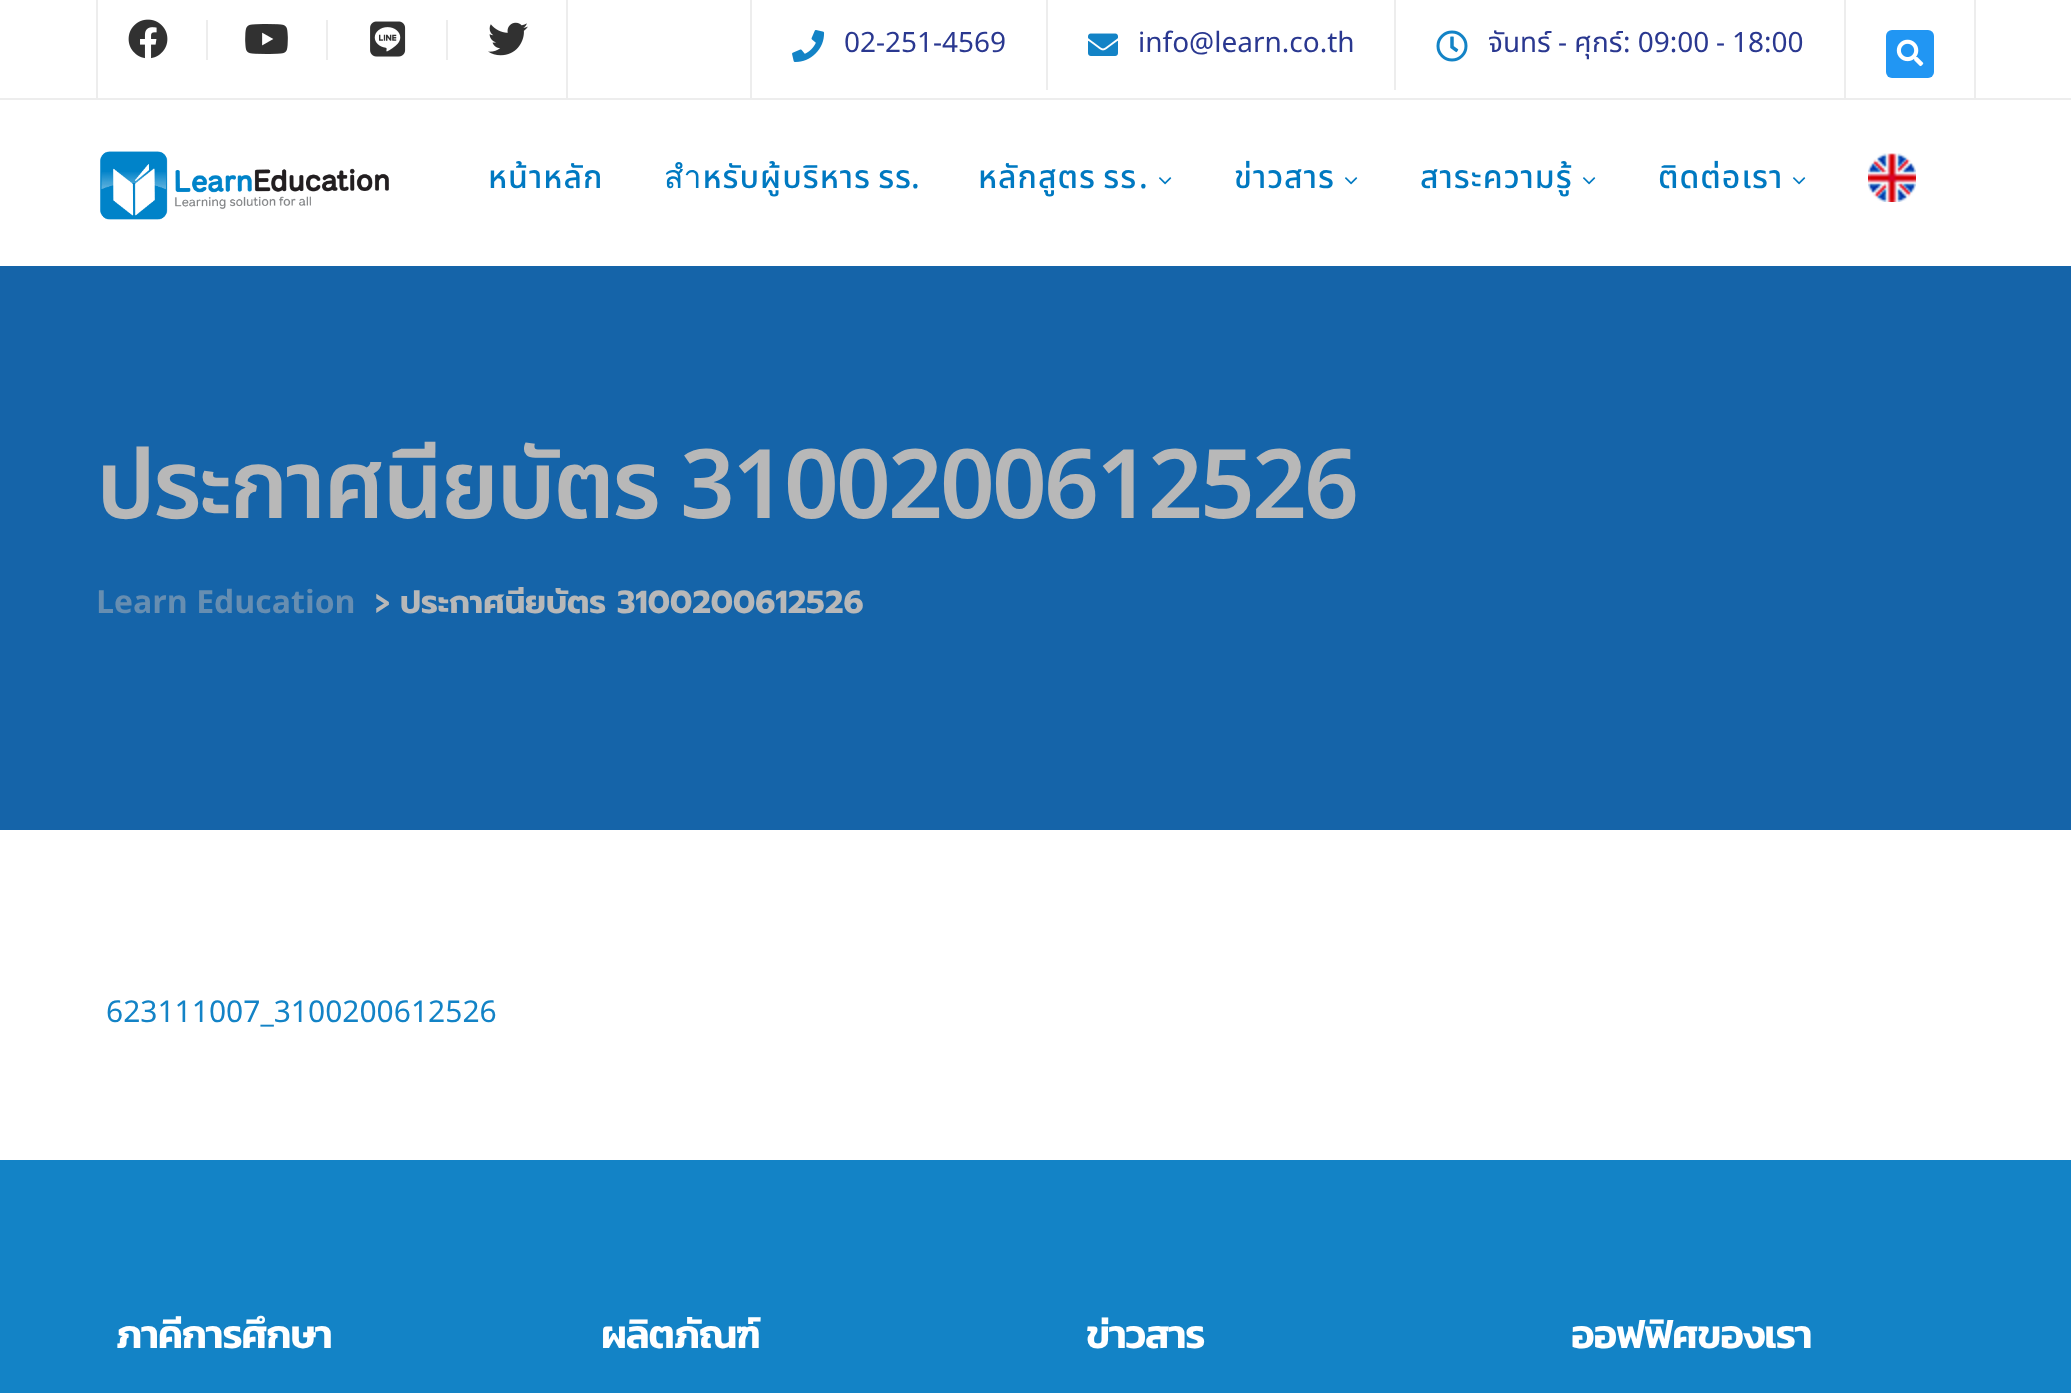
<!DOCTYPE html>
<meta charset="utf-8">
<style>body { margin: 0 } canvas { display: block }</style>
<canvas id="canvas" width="2071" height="1393"></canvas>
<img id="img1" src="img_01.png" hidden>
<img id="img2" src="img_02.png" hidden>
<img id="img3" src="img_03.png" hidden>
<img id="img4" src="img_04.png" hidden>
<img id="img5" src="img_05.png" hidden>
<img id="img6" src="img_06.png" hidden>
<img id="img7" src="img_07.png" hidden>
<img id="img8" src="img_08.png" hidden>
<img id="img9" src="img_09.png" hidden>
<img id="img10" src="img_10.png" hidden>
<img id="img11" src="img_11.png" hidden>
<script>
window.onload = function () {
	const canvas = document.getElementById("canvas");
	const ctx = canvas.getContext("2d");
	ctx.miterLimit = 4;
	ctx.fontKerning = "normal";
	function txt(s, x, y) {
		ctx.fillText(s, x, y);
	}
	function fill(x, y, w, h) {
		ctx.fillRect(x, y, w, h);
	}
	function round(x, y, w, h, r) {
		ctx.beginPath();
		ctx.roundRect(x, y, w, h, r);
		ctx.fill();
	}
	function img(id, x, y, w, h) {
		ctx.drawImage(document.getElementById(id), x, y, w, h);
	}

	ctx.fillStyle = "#FFFFFF";
	fill(0, 0, 2071, 1393);
	ctx.fillStyle = "#EDEDED";
	fill(0, 98, 2071, 2);
	fill(566, 0, 2, 98);
	fill(96, 0, 2, 98);
	fill(206, 20, 2, 40);
	img("img1", 128, 19, 40, 40);
	fill(326, 20, 2, 40);
	img("img2", 245, 24, 43, 30);
	fill(446, 20, 2, 40);
	img("img3", 370, 21, 36, 36);
	img("img4", 488, 22, 40, 34);
	fill(750, 0, 2, 98);
	fill(1046, 0, 2, 90);
	img("img5", 792, 30, 33, 32);
	fill(1394, 0, 2, 90);
	img("img6", 1088, 33, 30, 23);
	img("img7", 1436, 30, 32, 32);
	fill(1974, 0, 2, 98);
	fill(1844, 0, 2, 98);
	ctx.fillStyle = "#2196F3";
	round(1886, 30, 48, 48, 6);
	img("img8", 1896, 39, 28, 28);
	img("img9", 100, 151, 289, 69);
	img("img10", 1159, 177, 13, 8);
	img("img10", 1345, 177, 13, 8);
	img("img10", 1583, 177, 13, 8);
	img("img10", 1793, 177, 13, 8);
	img("img11", 1868, 153, 48, 49);
	ctx.fillStyle = "#1564A9";
	fill(0, 266, 2071, 564);
	ctx.fillStyle = "#1383C6";
	fill(0, 1160, 2071, 233);
	ctx.font = "28px Noto Sans";
	ctx.fillStyle = "#2A3890";
	txt("02-251-4569", 844, 52);
	txt("info@learn.co.th", 1138, 52);
	ctx.font = "28px Noto Sans Thai";
	txt("จันทร์ - ศุกร์", 1488, 52);
	ctx.font = "28px Noto Sans";
	txt(": 09:00", 1623, 52);
	ctx.font = "28px Noto Sans Thai";
	txt("-", 1716, 52);
	ctx.font = "28px Noto Sans";
	txt("18:00", 1732, 52);
	ctx.letterSpacing = "1px";
	ctx.font = "500 32px Noto Sans Thai";
	ctx.fillStyle = "#0079C1";
	txt("หน้าหลัก", 488, 188);
	ctx.wordSpacing = "-2px";
	txt("สำหรับผู้บริหาร รร", 664, 188);
	ctx.wordSpacing = "0px";
	ctx.font = "500 32px Noto Sans";
	txt(".", 911, 188);
	ctx.wordSpacing = "-2px";
	ctx.font = "500 32px Noto Sans Thai";
	txt("หลักสูตร รร", 978, 188);
	ctx.wordSpacing = "0px";
	ctx.font = "500 32px Noto Sans";
	txt(".", 1139, 188);
	ctx.font = "500 32px Noto Sans Thai";
	txt("ข่าวสาร", 1234, 188);
	txt("สาระความรู้", 1420, 188);
	txt("ติดต่อเรา", 1658, 188);
	ctx.letterSpacing = "-2.9px";
	ctx.font = "600 96px Noto Sans Thai";
	ctx.fillStyle = "#B8B8B8";
	txt("ประกาศนียบัตร", 96, 518);
	ctx.font = "600 96px Noto Sans";
	txt("3100200612526", 680, 518);
	ctx.letterSpacing = "0px";
	ctx.font = "bold 32px Noto Sans";
	ctx.fillStyle = "#678EB1";
	txt("Learn Education", 96, 613);
	ctx.font = "bold 32px anuphan";
	ctx.fillStyle = "#B8B8B8";
	txt(">", 373, 613);
	ctx.font = "bold 32px Prompt";
	txt("ประกาศนียบัตร 3100200612526", 400, 613);
	ctx.font = "30px Noto Sans";
	ctx.fillStyle = "#1383C6";
	txt("623111007_3100200612526", 106, 1022);
	ctx.letterSpacing = "-1.25px";
	ctx.font = "600 40px Kanit";
	ctx.fillStyle = "#FFFFFF";
	txt("ภาคีการศึกษา", 116, 1348);
	txt("ผลิตภัณฑ์", 601, 1348);
	txt("ข่าวสาร", 1086, 1348);
	txt("ออฟฟิศของเรา", 1571, 1348);
};
</script>
